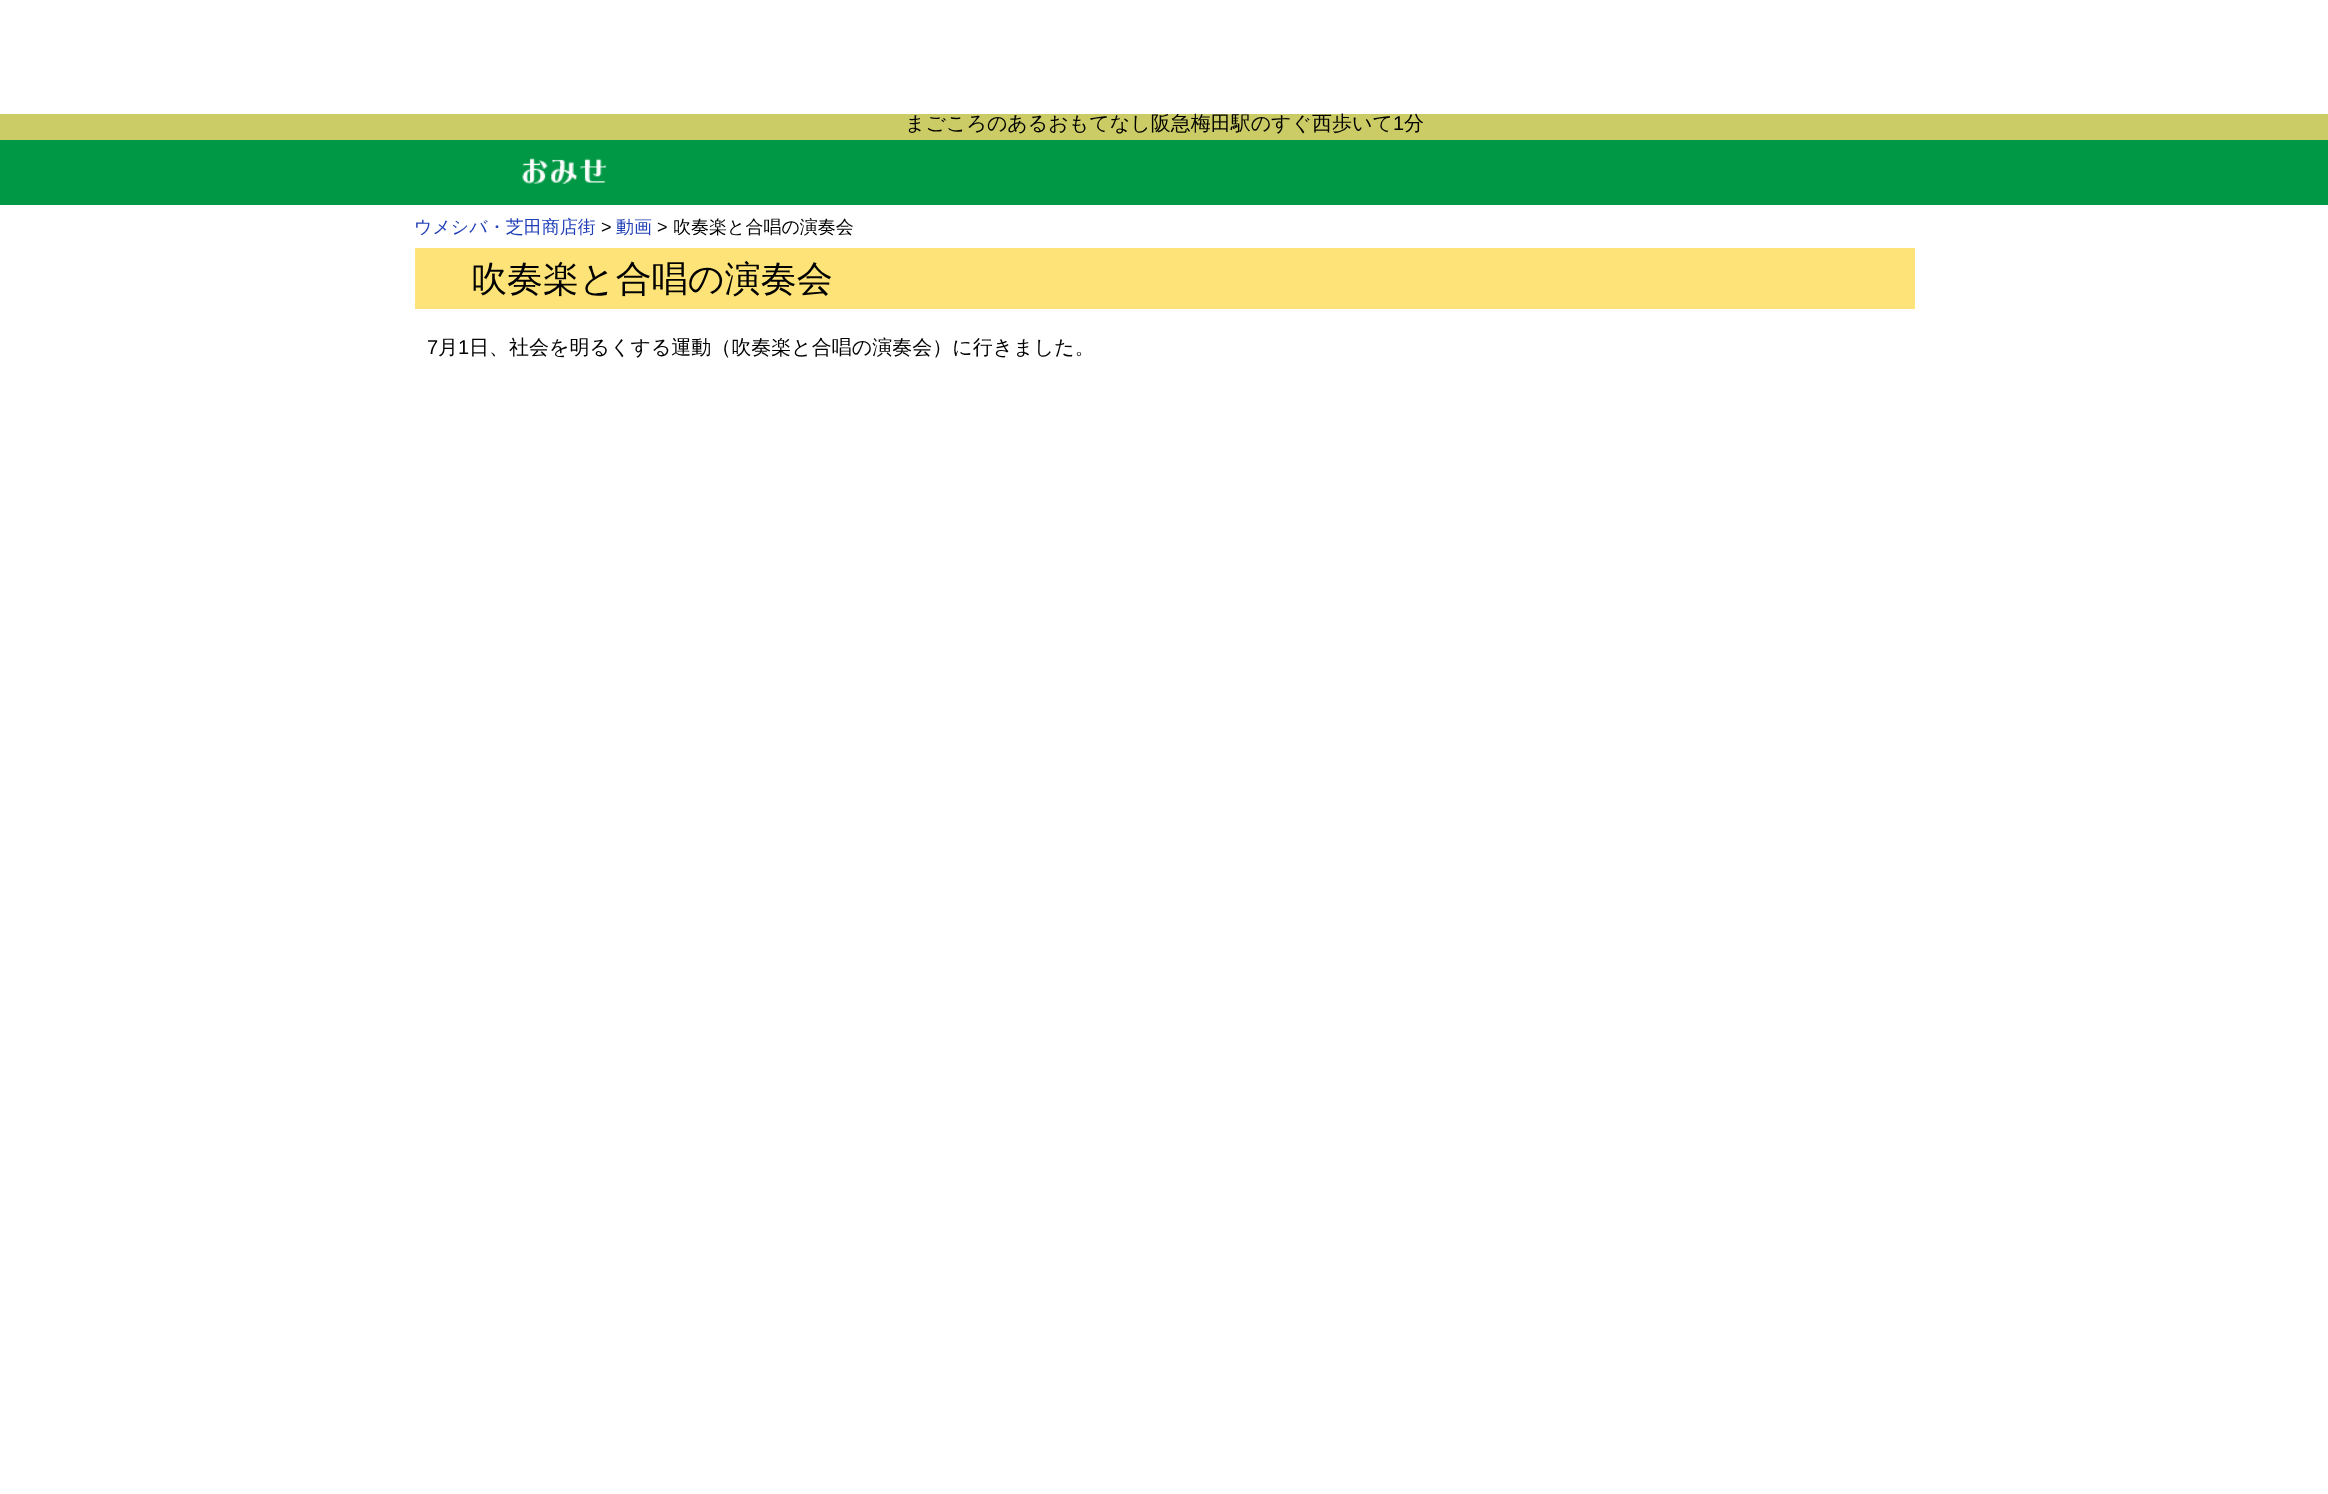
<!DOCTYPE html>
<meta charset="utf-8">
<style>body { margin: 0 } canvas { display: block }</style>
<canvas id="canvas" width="2328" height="1494"></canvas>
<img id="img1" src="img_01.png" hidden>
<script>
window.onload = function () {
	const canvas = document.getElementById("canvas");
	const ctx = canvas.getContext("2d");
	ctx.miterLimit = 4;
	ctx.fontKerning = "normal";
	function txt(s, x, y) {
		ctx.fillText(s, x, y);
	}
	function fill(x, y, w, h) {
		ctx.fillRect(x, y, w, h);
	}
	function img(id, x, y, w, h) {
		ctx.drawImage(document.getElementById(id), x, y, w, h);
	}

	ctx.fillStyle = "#FFFFFF";
	fill(0, 0, 2328, 1494);
	ctx.fillStyle = "#CCCC66";
	fill(0, 114, 2328, 26);
	ctx.fillStyle = "#009844";
	fill(0, 140, 2328, 65);
	img("img1", 522, 158, 85, 26);
	ctx.fillStyle = "#FEE379";
	fill(415, 248, 1500, 61);
	ctx.font = "500 20px WenQuanYi Zen Hei";
	ctx.fillStyle = "#000000";
	txt("まごころのあるおもてなし阪急梅田駅のすぐ西歩いて", 905, 130);
	ctx.font = "20px Liberation Sans";
	txt("1", 1393, 130);
	ctx.font = "500 20px WenQuanYi Zen Hei";
	txt("分", 1404, 130);
	ctx.font = "500 18px WenQuanYi Zen Hei";
	ctx.fillStyle = "#203FB7";
	txt("ウメシバ・芝田商店街", 414, 233);
	ctx.font = "18px Liberation Sans";
	ctx.fillStyle = "#000000";
	txt(">", 601, 233);
	ctx.font = "500 18px WenQuanYi Zen Hei";
	ctx.fillStyle = "#203FB7";
	txt("動画", 616, 233);
	ctx.font = "18px Liberation Sans";
	ctx.fillStyle = "#000000";
	txt(">", 657, 233);
	ctx.font = "500 18px WenQuanYi Zen Hei";
	txt("吹奏楽と合唱の演奏会", 673, 233);
	ctx.font = "500 36px WenQuanYi Zen Hei";
	txt("吹奏楽と合唱の演奏会", 471, 291);
	ctx.font = "20px Liberation Sans";
	txt("7", 427, 354);
	ctx.font = "500 20px WenQuanYi Zen Hei";
	txt("月", 438, 354);
	ctx.font = "20px Liberation Sans";
	txt("1", 458, 354);
	ctx.font = "500 20px WenQuanYi Zen Hei";
	txt("日、社会を明るくする運動（吹奏楽と合唱の演奏会）に行きました。", 469, 354);
};
</script>
